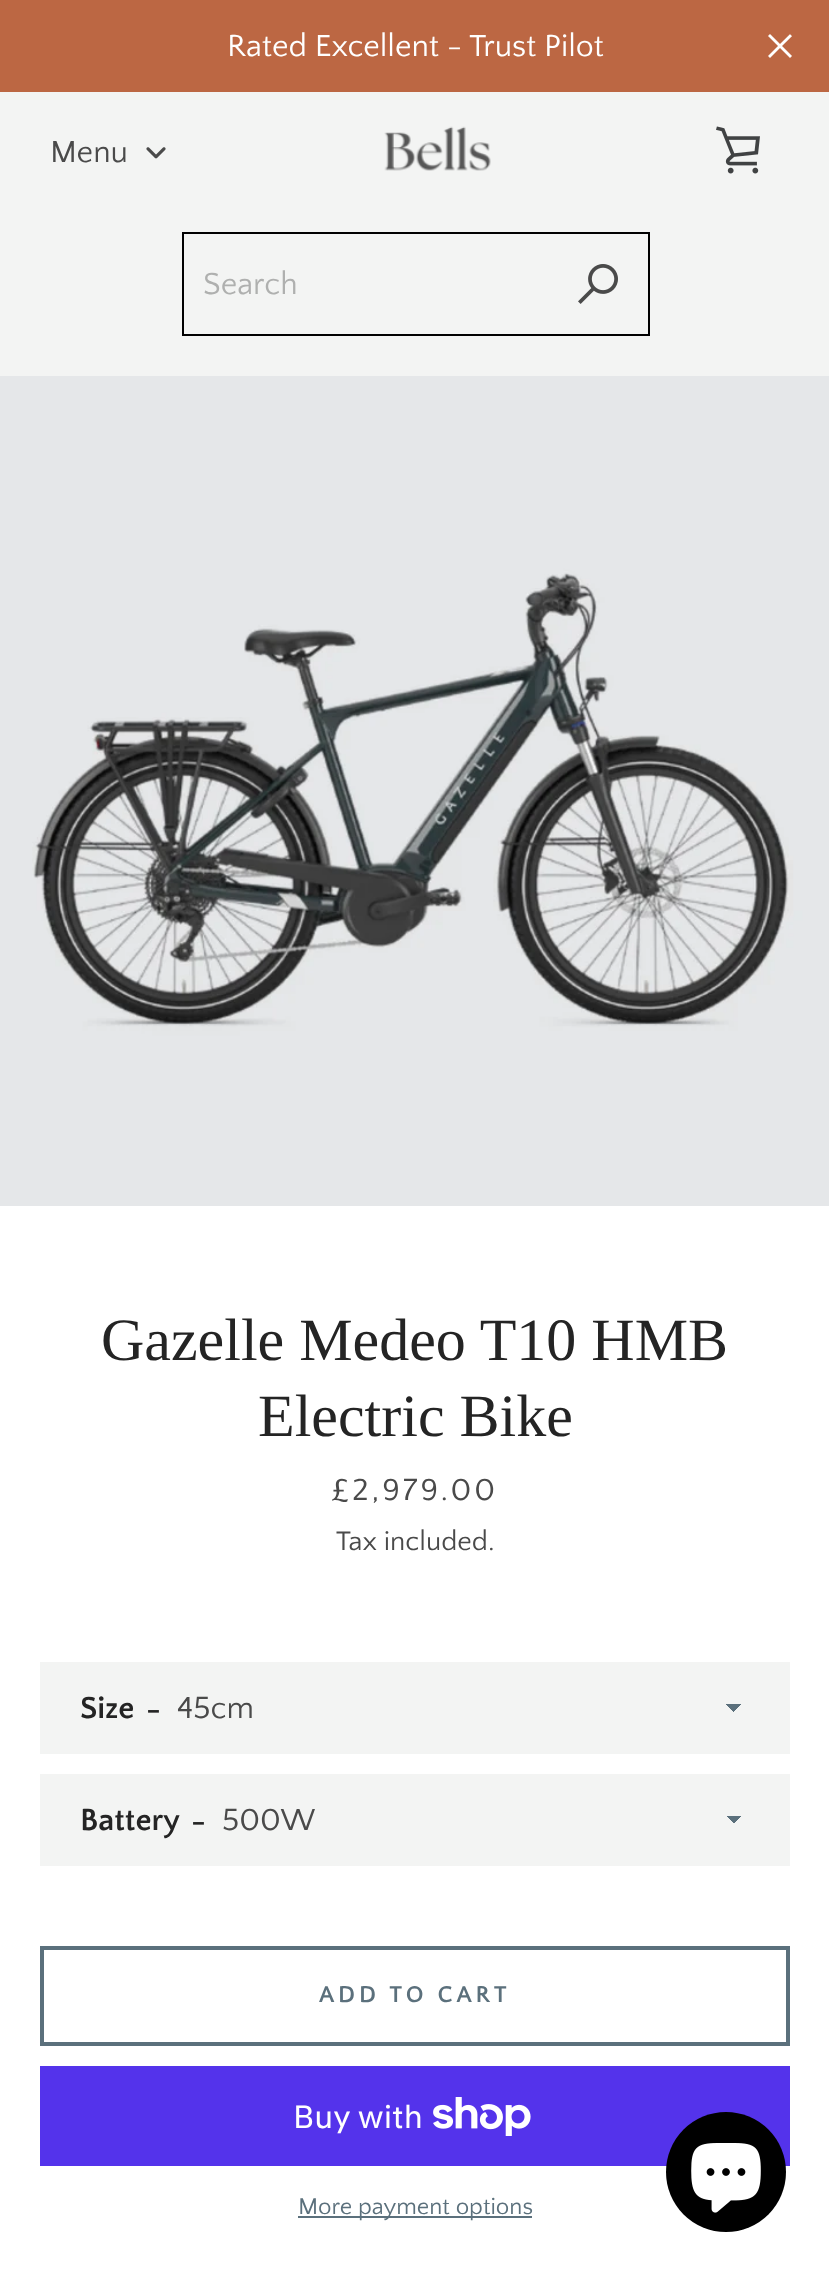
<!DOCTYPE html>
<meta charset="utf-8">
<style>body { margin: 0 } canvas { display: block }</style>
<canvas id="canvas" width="829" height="2273"></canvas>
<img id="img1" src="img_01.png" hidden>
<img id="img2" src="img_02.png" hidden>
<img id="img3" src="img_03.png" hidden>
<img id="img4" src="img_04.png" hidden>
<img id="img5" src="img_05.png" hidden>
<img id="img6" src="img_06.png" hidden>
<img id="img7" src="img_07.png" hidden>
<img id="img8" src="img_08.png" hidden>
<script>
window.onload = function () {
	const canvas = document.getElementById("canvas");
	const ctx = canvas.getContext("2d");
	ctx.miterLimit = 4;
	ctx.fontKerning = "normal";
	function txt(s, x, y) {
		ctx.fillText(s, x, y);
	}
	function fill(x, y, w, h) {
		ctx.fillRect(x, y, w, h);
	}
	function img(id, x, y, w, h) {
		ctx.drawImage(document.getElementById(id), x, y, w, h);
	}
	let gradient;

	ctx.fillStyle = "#FFFFFF";
	fill(0, 0, 829, 2273);
	ctx.fillStyle = "#F3F4F3";
	fill(0, 92, 829, 284);
	ctx.fillStyle = "#BC6743";
	fill(0, 0, 829, 92);
	img("img1", 768, 34, 24, 24);
	img("img2", 146, 147, 20, 12);
	img("img3", 384, 126, 107, 45);
	img("img4", 716, 126, 44, 48);
	ctx.strokeStyle = "#000000";
	ctx.lineWidth = 2;
	ctx.strokeRect(183, 233, 466, 102);
	img("img5", 578, 264, 40, 40);
	img("img6", 0, 376, 829, 830);
	ctx.fillStyle = "#F3F4F3";
	fill(40, 1662, 750, 92);
	gradient = ctx.createLinearGradient(734, 1704, 742, 1712);
	gradient.addColorStop(0.5, "#5B707C");
	gradient.addColorStop(0.5, "#F3F4F3");
	ctx.fillStyle = gradient;
	fill(734, 1704, 8, 7);
	gradient = ctx.createLinearGradient(726, 1712, 734, 1704);
	gradient.addColorStop(0.5, "#F3F4F3");
	gradient.addColorStop(0.5, "#5B707C");
	ctx.fillStyle = gradient;
	fill(726, 1704, 8, 8);
	ctx.fillStyle = "#F3F4F3";
	fill(40, 1774, 750, 92);
	gradient = ctx.createLinearGradient(734, 1816, 742, 1824);
	gradient.addColorStop(0.5, "#5B707C");
	gradient.addColorStop(0.5, "#F3F4F3");
	ctx.fillStyle = gradient;
	fill(734, 1816, 8, 7);
	gradient = ctx.createLinearGradient(726, 1824, 734, 1816);
	gradient.addColorStop(0.5, "#F3F4F3");
	gradient.addColorStop(0.5, "#5B707C");
	ctx.fillStyle = gradient;
	fill(726, 1816, 8, 8);
	ctx.strokeStyle = "#5B707C";
	ctx.lineWidth = 4;
	ctx.strokeRect(42, 1948, 746, 96);
	ctx.fillStyle = "#5433EB";
	fill(40, 2066, 750, 100);
	img("img7", 433, 2097, 98, 39);
	ctx.fillStyle = "#5B707C";
	fill(298, 2216, 234, 2);
	ctx.fillStyle = "#000000";
	ctx.beginPath();
	ctx.arc(726, 2172, 60, 0, Math.PI * 2);
	ctx.fill();
	img("img8", 691, 2143, 70, 70);
	ctx.font = "32px Quattrocento Sans";
	ctx.fillStyle = "#FFFFFF";
	txt("Rated Excellent - Trust Pilot", 227, 56);
	ctx.fillStyle = "#4A4A4A";
	txt("Menu", 50, 162);
	ctx.fillStyle = "#AFB0AF";
	txt("Search", 203, 294);
	ctx.font = "60px Liberation Serif";
	ctx.fillStyle = "#242424";
	txt("Gazelle Medeo T10 HMB", 101, 1360);
	txt("Electric Bike", 258, 1436);
	ctx.letterSpacing = "3px";
	ctx.font = "32px Quattrocento Sans";
	ctx.fillStyle = "#4A4A4A";
	txt("£2,979.00", 331, 1500);
	ctx.letterSpacing = "0px";
	ctx.font = "28px Quattrocento Sans";
	txt("Tax included.", 336, 1550);
	ctx.font = "bold 32px Quattrocento Sans";
	ctx.fillStyle = "#242424";
	txt("Size", 80, 1718);
	txt("-", 146, 1719);
	ctx.font = "32px Quattrocento Sans";
	ctx.fillStyle = "#4A4A4A";
	txt("45cm", 177, 1718);
	ctx.font = "bold 32px Quattrocento Sans";
	ctx.fillStyle = "#242424";
	txt("Battery", 80, 1830);
	txt("-", 191, 1831);
	ctx.font = "32px Quattrocento Sans";
	ctx.fillStyle = "#4A4A4A";
	txt("500W", 222, 1830);
	ctx.letterSpacing = "4px";
	ctx.font = "bold 24px Quattrocento Sans";
	ctx.fillStyle = "#5B707C";
	txt("ADD TO CART", 319, 2002);
	ctx.letterSpacing = "0px";
	ctx.font = "32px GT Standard";
	ctx.fillStyle = "#FFFFFF";
	txt("Buy with", 293, 2128);
	ctx.font = "24px Quattrocento Sans";
	ctx.fillStyle = "#5B707C";
	txt("More payment options", 298, 2214);
};
</script>
